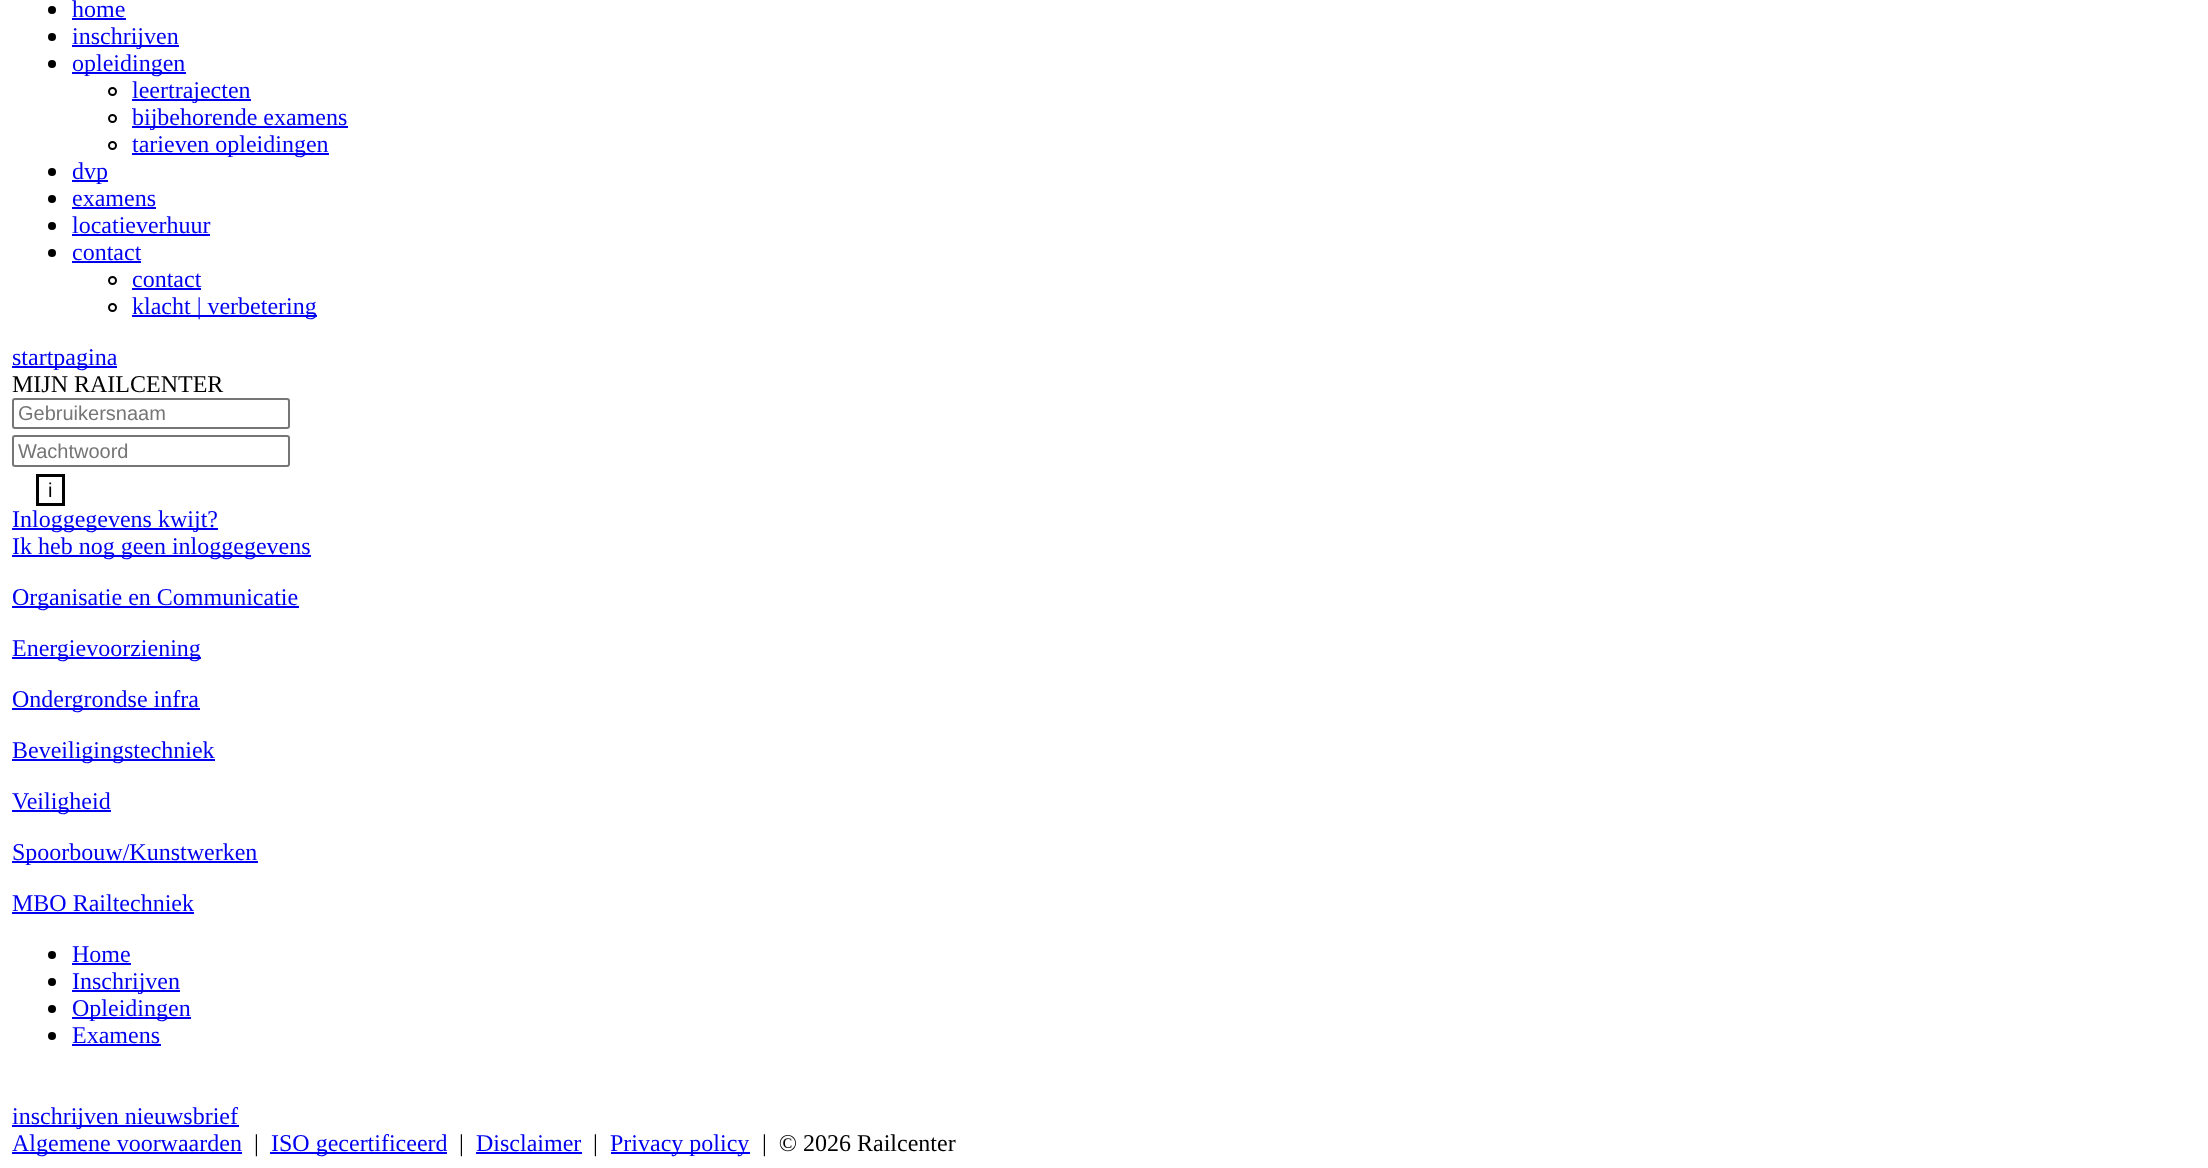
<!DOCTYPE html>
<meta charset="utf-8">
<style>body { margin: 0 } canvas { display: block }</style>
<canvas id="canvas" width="2208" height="1168"></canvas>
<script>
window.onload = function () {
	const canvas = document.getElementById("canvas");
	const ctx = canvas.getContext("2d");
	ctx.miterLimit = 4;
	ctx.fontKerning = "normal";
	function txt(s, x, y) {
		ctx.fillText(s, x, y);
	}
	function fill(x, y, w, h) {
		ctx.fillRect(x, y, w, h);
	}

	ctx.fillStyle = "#FFFFFF";
	fill(0, 0, 2208, 1168);
	ctx.fillStyle = "#000000";
	ctx.beginPath();
	ctx.arc(52, 10, 4, 0, Math.PI * 2);
	ctx.fill();
	ctx.fillStyle = "#0000EE";
	fill(72, 18, 54, 2);
	ctx.fillStyle = "#000000";
	ctx.beginPath();
	ctx.arc(52, 37, 4, 0, Math.PI * 2);
	ctx.fill();
	ctx.fillStyle = "#0000EE";
	fill(72, 45, 107, 2);
	ctx.fillStyle = "#000000";
	ctx.beginPath();
	ctx.arc(52, 64, 4, 0, Math.PI * 2);
	ctx.fill();
	ctx.fillStyle = "#0000EE";
	fill(72, 72, 114, 2);
	ctx.beginPath();
	ctx.arc(112.5, 91.5, 3.5, 0, Math.PI * 2);
	ctx.strokeStyle = "#000000";
	ctx.lineWidth = 2;
	ctx.stroke();
	fill(132, 99, 119, 2);
	ctx.beginPath();
	ctx.arc(112.5, 118.5, 3.5, 0, Math.PI * 2);
	ctx.stroke();
	fill(132, 126, 216, 2);
	ctx.beginPath();
	ctx.arc(112.5, 145.5, 3.5, 0, Math.PI * 2);
	ctx.stroke();
	fill(132, 153, 197, 2);
	ctx.fillStyle = "#000000";
	ctx.beginPath();
	ctx.arc(52, 172, 4, 0, Math.PI * 2);
	ctx.fill();
	ctx.fillStyle = "#0000EE";
	fill(72, 180, 36, 2);
	ctx.fillStyle = "#000000";
	ctx.beginPath();
	ctx.arc(52, 199, 4, 0, Math.PI * 2);
	ctx.fill();
	ctx.fillStyle = "#0000EE";
	fill(72, 207, 84, 2);
	ctx.fillStyle = "#000000";
	ctx.beginPath();
	ctx.arc(52, 226, 4, 0, Math.PI * 2);
	ctx.fill();
	ctx.fillStyle = "#0000EE";
	fill(72, 234, 138, 2);
	ctx.fillStyle = "#000000";
	ctx.beginPath();
	ctx.arc(52, 253, 4, 0, Math.PI * 2);
	ctx.fill();
	ctx.fillStyle = "#0000EE";
	fill(72, 261, 69, 2);
	ctx.beginPath();
	ctx.arc(112.5, 280.5, 3.5, 0, Math.PI * 2);
	ctx.stroke();
	fill(132, 288, 69, 2);
	ctx.beginPath();
	ctx.arc(112.5, 307.5, 3.5, 0, Math.PI * 2);
	ctx.stroke();
	fill(132, 315, 185, 2);
	fill(12, 366, 105, 2);
	ctx.beginPath();
	ctx.roundRect(13, 399, 276, 29, 2);
	ctx.strokeStyle = "#767676";
	ctx.stroke();
	ctx.beginPath();
	ctx.roundRect(13, 436, 276, 30, 2);
	ctx.stroke();
	ctx.strokeStyle = "#000000";
	ctx.lineWidth = 3;
	ctx.strokeRect(37.5, 475.5, 26, 29);
	fill(12, 528, 206, 2);
	fill(12, 555, 299, 2);
	fill(12, 606, 287, 2);
	fill(12, 657, 189, 2);
	fill(12, 708, 188, 2);
	fill(12, 759, 203, 2);
	fill(12, 810, 99, 2);
	fill(12, 861, 246, 2);
	fill(12, 912, 182, 2);
	ctx.fillStyle = "#000000";
	ctx.beginPath();
	ctx.arc(52, 955, 4, 0, Math.PI * 2);
	ctx.fill();
	ctx.fillStyle = "#0000EE";
	fill(72, 963, 59, 2);
	ctx.fillStyle = "#000000";
	ctx.beginPath();
	ctx.arc(52, 982, 4, 0, Math.PI * 2);
	ctx.fill();
	ctx.fillStyle = "#0000EE";
	fill(72, 990, 108, 2);
	ctx.fillStyle = "#000000";
	ctx.beginPath();
	ctx.arc(52, 1009, 4, 0, Math.PI * 2);
	ctx.fill();
	ctx.fillStyle = "#0000EE";
	fill(72, 1017, 119, 2);
	ctx.fillStyle = "#000000";
	ctx.beginPath();
	ctx.arc(52, 1036, 4, 0, Math.PI * 2);
	ctx.fill();
	ctx.fillStyle = "#0000EE";
	fill(72, 1044, 89, 2);
	fill(12, 1125, 227, 2);
	fill(12, 1152, 230, 2);
	fill(270, 1152, 177, 2);
	fill(476, 1152, 106, 2);
	fill(611, 1152, 139, 2);
	ctx.font = "24px Liberation Serif";
	txt("home", 72, 17);
	txt("inschrijven", 72, 44);
	txt("opleidingen", 72, 71);
	txt("leertrajecten", 132, 98);
	txt("bijbehorende examens", 132, 125);
	txt("tarieven opleidingen", 132, 152);
	txt("dvp", 72, 179);
	txt("examens", 72, 206);
	txt("locatieverhuur", 72, 233);
	txt("contact", 72, 260);
	txt("contact", 132, 287);
	txt("klacht | verbetering", 132, 314);
	txt("startpagina", 12, 365);
	ctx.fillStyle = "#000000";
	txt("MIJN RAILCENTER", 12, 392);
	ctx.font = "20px Liberation Sans";
	ctx.fillStyle = "#757575";
	txt("Gebruikersnaam", 18, 420);
	txt("Wachtwoord", 18, 458);
	ctx.fillStyle = "#000000";
	txt("i", 48, 497);
	ctx.font = "24px Liberation Serif";
	ctx.fillStyle = "#0000EE";
	txt("Inloggegevens kwijt?", 12, 527);
	txt("Ik heb nog geen inloggegevens", 12, 554);
	txt("Organisatie en Communicatie", 12, 605);
	txt("Energievoorziening", 12, 656);
	txt("Ondergrondse infra", 12, 707);
	txt("Beveiligingstechniek", 12, 758);
	txt("Veiligheid", 12, 809);
	txt("Spoorbouw/Kunstwerken", 12, 860);
	txt("MBO Railtechniek", 12, 911);
	txt("Home", 72, 962);
	txt("Inschrijven", 72, 989);
	txt("Opleidingen", 72, 1016);
	txt("Examens", 72, 1043);
	txt("inschrijven nieuwsbrief", 12, 1124);
	txt("Algemene voorwaarden", 12, 1151);
	ctx.fillStyle = "#000000";
	txt("|", 254, 1151);
	ctx.fillStyle = "#0000EE";
	txt("ISO gecertificeerd", 271, 1151);
	ctx.fillStyle = "#000000";
	txt("|", 459, 1151);
	ctx.fillStyle = "#0000EE";
	txt("Disclaimer", 476, 1151);
	ctx.fillStyle = "#000000";
	txt("|", 593, 1151);
	ctx.fillStyle = "#0000EE";
	txt("Privacy policy", 610, 1151);
	ctx.fillStyle = "#000000";
	txt("|  © 2026 Railcenter", 762, 1151);
};
</script>
